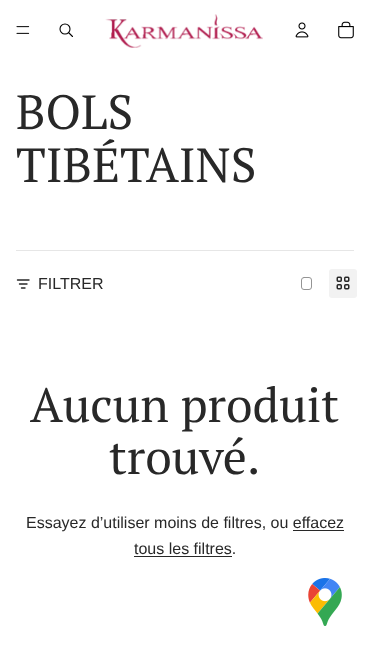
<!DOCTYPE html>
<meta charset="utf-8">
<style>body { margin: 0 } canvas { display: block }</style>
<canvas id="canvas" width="370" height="647"></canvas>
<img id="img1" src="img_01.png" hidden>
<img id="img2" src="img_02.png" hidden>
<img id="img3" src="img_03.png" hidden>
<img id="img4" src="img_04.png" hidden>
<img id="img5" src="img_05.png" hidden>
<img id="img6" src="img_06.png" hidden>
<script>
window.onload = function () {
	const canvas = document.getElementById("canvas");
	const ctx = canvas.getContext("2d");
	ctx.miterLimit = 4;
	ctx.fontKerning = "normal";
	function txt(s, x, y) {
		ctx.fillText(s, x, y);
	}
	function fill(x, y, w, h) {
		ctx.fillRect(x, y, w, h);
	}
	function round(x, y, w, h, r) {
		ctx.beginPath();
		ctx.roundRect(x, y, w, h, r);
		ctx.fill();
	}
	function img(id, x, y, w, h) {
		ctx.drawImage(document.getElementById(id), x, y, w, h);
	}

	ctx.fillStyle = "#FFFFFF";
	fill(0, 0, 370, 647);
	img("img1", 16, 26, 14, 8);
	ctx.beginPath();
	ctx.arc(65, 29, 5, 0, Math.PI * 2);
	ctx.strokeStyle = "#000000";
	ctx.lineWidth = 1.1;
	ctx.stroke();
	ctx.beginPath();
	ctx.moveTo(69, 33);
	ctx.lineTo(72.5, 36.5);
	ctx.lineCap = "round";
	ctx.lineJoin = "round";
	ctx.stroke();
	img("img2", 105, 14, 158, 34);
	img("img3", 295, 22, 14, 16);
	img("img4", 338, 21, 16, 18);
	ctx.fillStyle = "#E6E6E6";
	fill(16, 250, 338, 1);
	ctx.beginPath();
	ctx.moveTo(29, 280);
	ctx.lineTo(17.5, 280);
	ctx.moveTo(27, 284);
	ctx.lineTo(19.5, 284);
	ctx.moveTo(21.5, 288);
	ctx.lineTo(25, 288);
	ctx.strokeStyle = "#282828";
	ctx.lineWidth = 1.4;
	ctx.lineJoin = "miter";
	ctx.stroke();
	ctx.beginPath();
	ctx.roundRect(301.5, 277.5, 10, 12, 2.5);
	ctx.strokeStyle = "#949494";
	ctx.lineWidth = 1;
	ctx.stroke();
	ctx.fillStyle = "#F2F2F2";
	round(329, 269, 28, 29, 3);
	img("img5", 336, 276, 14, 14);
	ctx.fillStyle = "#282828";
	fill(293, 530, 51, 1);
	fill(134, 556, 98, 1);
	img("img6", 308, 578, 34, 48);
	ctx.font = "48px PT Serif";
	txt("BOLS", 16, 129);
	txt("TIBÉTAINS", 16, 182);
	ctx.font = "16px Arimo";
	txt("FILTRER", 38, 289);
	ctx.font = "48px PT Serif";
	txt("Aucun produit", 30, 422);
	txt("trouvé.", 109, 474);
	ctx.font = "16px Arimo";
	txt("Essayez d’utiliser moins de filtres, ou effacez", 26, 528);
	txt("tous les filtres.", 134, 554);
};
</script>
